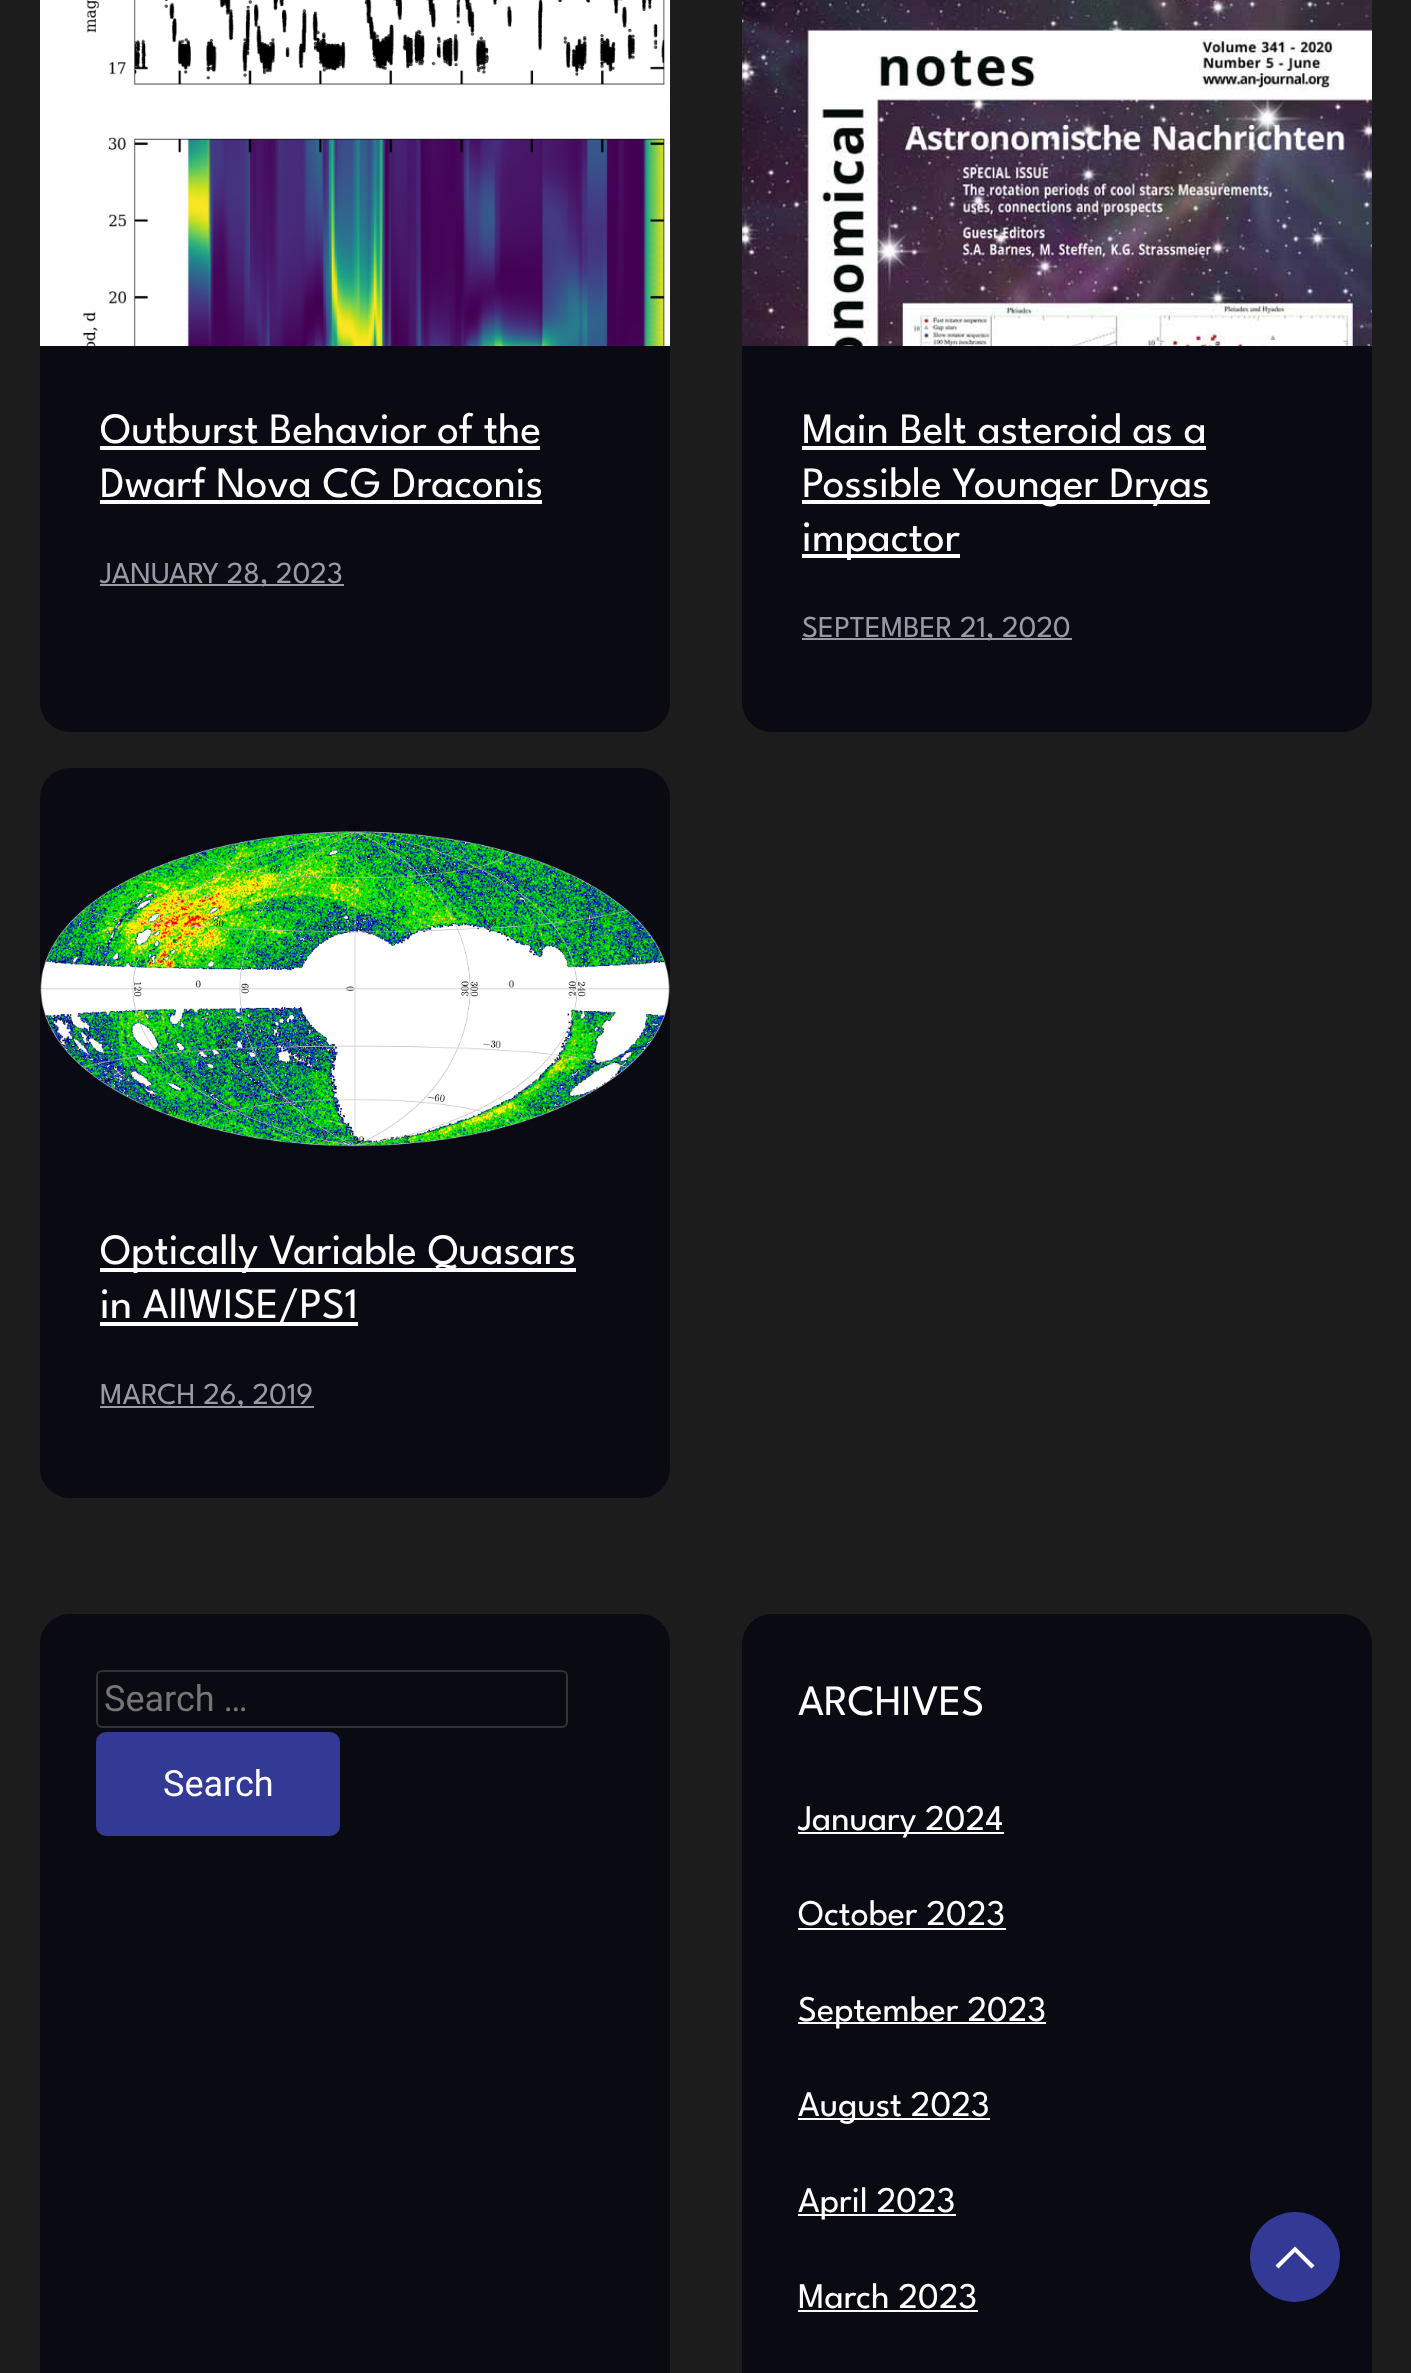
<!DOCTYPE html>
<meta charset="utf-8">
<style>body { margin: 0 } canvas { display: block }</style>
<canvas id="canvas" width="1411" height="2373"></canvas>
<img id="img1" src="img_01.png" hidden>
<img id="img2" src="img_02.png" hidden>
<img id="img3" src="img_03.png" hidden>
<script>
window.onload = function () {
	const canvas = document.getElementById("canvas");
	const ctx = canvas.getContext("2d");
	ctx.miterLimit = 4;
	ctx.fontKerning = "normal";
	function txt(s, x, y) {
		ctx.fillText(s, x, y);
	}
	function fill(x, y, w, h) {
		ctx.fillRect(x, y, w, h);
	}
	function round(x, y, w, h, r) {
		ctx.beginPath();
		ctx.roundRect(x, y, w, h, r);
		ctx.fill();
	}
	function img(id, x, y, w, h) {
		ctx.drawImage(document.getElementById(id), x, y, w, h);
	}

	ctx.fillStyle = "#1C1C1C";
	fill(0, 0, 1411, 2373);
	ctx.fillStyle = "#0A0A12";
	round(40, -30, 630, 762, 30);
	img("img1", 40, 0, 630, 346);
	ctx.fillStyle = "#FFFFFF";
	fill(100, 446, 440, 4);
	fill(100, 500, 442, 4);
	ctx.fillStyle = "#969AA5";
	fill(100, 584, 244, 2);
	ctx.fillStyle = "#0A0A12";
	round(742, -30, 630, 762, 30);
	img("img2", 742, 0, 630, 346);
	ctx.fillStyle = "#FFFFFF";
	fill(802, 446, 404, 4);
	fill(802, 500, 408, 4);
	fill(802, 554, 158, 4);
	ctx.fillStyle = "#969AA5";
	fill(802, 638, 270, 2);
	ctx.fillStyle = "#0A0A12";
	round(40, 768, 630, 730, 30);
	img("img3", 40, 824, 630, 323);
	ctx.fillStyle = "#FFFFFF";
	fill(100, 1268, 476, 4);
	fill(100, 1322, 258, 4);
	ctx.fillStyle = "#969AA5";
	fill(100, 1406, 214, 2);
	ctx.fillStyle = "#0A0A12";
	round(40, 1614, 630, 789, 30);
	ctx.beginPath();
	ctx.roundRect(97, 1671, 470, 56, 5);
	ctx.strokeStyle = "#333333";
	ctx.lineWidth = 2;
	ctx.stroke();
	ctx.fillStyle = "#323A96";
	ctx.beginPath();
	ctx.roundRect(97, 1733, 242, 102, 9);
	ctx.fill();
	ctx.strokeStyle = "#323A96";
	ctx.stroke();
	ctx.fillStyle = "#0A0A12";
	round(742, 1614, 630, 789, 30);
	ctx.fillStyle = "#FFFFFF";
	fill(798, 1832, 206, 2);
	fill(798, 1928, 208, 2);
	fill(798, 2022, 248, 2);
	fill(798, 2118, 192, 2);
	fill(798, 2214, 158, 2);
	fill(798, 2310, 180, 2);
	ctx.fillStyle = "#323A96";
	ctx.beginPath();
	ctx.arc(1295, 2257, 45, 0, Math.PI * 2);
	ctx.fill();
	ctx.fillStyle = "#FFFFFF";
	ctx.beginPath();
	ctx.moveTo(1314.5, 2265.5);
	ctx.lineTo(1311.5, 2268.5);
	ctx.lineTo(1295, 2252);
	ctx.lineTo(1278.5, 2268.5);
	ctx.lineTo(1275.5, 2265.5);
	ctx.lineTo(1295, 2246.5);
	ctx.lineTo(1314.5, 2265.5);
	ctx.fill();
	ctx.font = "43.25px League Spartan";
	txt("Outburst Behavior of the", 100, 443);
	txt("Dwarf Nova CG Draconis", 100, 497);
	ctx.font = "30.5px League Spartan";
	ctx.fillStyle = "#969AA5";
	txt("JANUARY 28, 2023", 100, 583);
	ctx.font = "43.25px League Spartan";
	ctx.fillStyle = "#FFFFFF";
	txt("Main Belt asteroid as a", 802, 443);
	txt("Possible Younger Dryas", 802, 497);
	txt("impactor", 802, 551);
	ctx.font = "30.5px League Spartan";
	ctx.fillStyle = "#969AA5";
	txt("SEPTEMBER 21, 2020", 802, 637);
	ctx.font = "43.25px League Spartan";
	ctx.fillStyle = "#FFFFFF";
	txt("Optically Variable Quasars", 100, 1264);
	txt("in AllWISE/PS1", 100, 1318);
	ctx.font = "30.5px League Spartan";
	ctx.fillStyle = "#969AA5";
	txt("MARCH 26, 2019", 100, 1404);
	ctx.font = "36px Roboto";
	ctx.fillStyle = "#757575";
	txt("Search …", 104, 1711);
	ctx.fillStyle = "#FFFFFF";
	txt("Search", 163, 1796);
	ctx.font = "43.25px League Spartan";
	txt("ARCHIVES", 798, 1715);
	ctx.font = "36px League Spartan";
	txt("January 2024", 798, 1830);
	txt("October 2023", 798, 1925);
	txt("September 2023", 798, 2021);
	txt("August 2023", 798, 2116);
	txt("April 2023", 798, 2212);
	txt("March 2023", 798, 2308);
};
</script>
